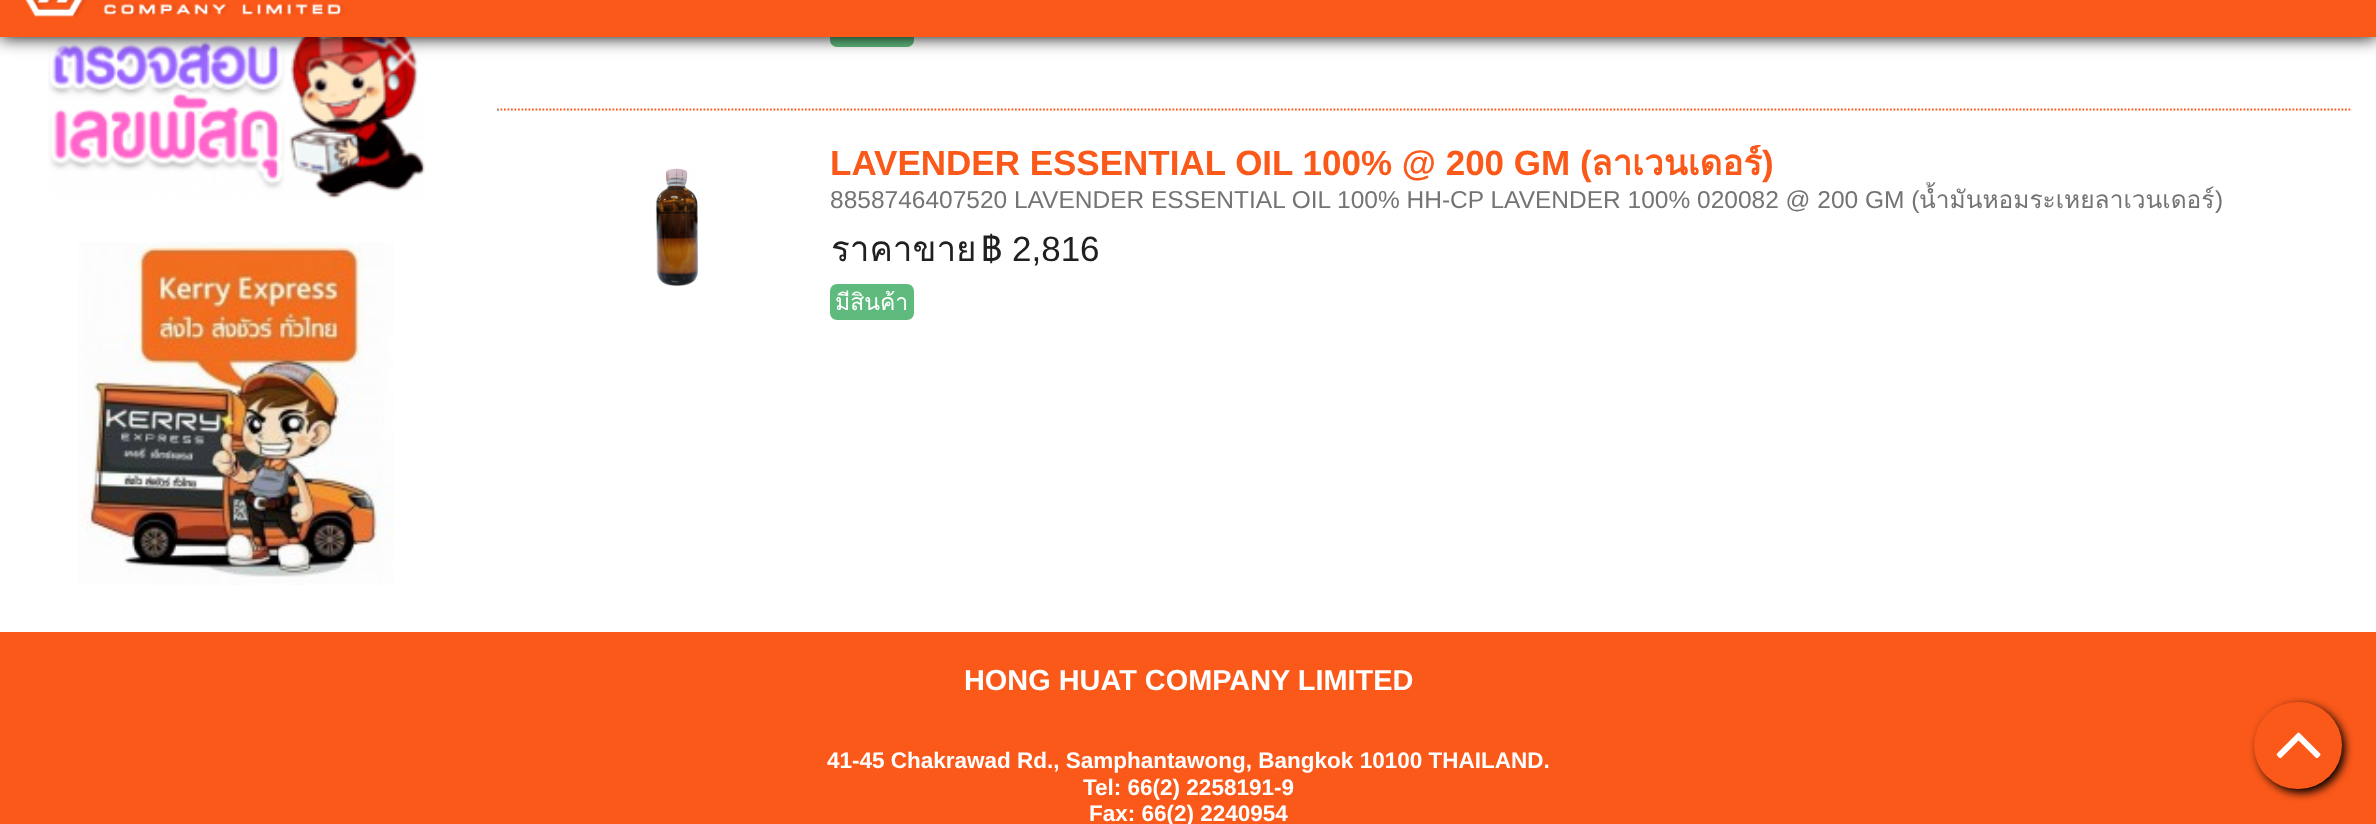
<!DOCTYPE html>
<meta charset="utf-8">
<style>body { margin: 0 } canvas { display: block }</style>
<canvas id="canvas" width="2376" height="824"></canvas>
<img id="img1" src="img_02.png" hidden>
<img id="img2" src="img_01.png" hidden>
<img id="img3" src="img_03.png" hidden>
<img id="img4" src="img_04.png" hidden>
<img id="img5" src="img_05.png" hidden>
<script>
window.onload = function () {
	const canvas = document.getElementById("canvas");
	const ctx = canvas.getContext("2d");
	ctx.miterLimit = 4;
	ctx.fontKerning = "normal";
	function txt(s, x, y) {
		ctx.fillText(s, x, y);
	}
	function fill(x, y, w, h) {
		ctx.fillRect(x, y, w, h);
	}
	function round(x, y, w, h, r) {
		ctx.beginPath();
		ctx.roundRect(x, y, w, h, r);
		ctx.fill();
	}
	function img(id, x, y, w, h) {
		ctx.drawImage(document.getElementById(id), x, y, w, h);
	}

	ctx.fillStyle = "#FFFFFF";
	fill(0, 0, 2376, 824);
	img("img1", 48, 37, 377, 162);
	ctx.fillStyle = "#5FBA7D";
	round(830, 11, 84, 36, 7);
	ctx.fillStyle = "#000000";
	ctx.filter = "blur(9px)";
	ctx.beginPath();
	ctx.rect(0, -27, 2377, 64);
	ctx.fill();
	ctx.filter = "none";
	ctx.fillStyle = "#FB591A";
	fill(0, 0, 2376, 37);
	img("img2", 25, 0, 320, 17);
	img("img3", 78, 242, 316, 343);
	ctx.beginPath();
	ctx.moveTo(497, 109.5);
	ctx.lineTo(2352, 109.5);
	ctx.strokeStyle = "#FB591A";
	ctx.lineWidth = 1.8;
	ctx.setLineDash([1.75, 1.75]);
	ctx.stroke();
	ctx.fillStyle = "#EEEEEE";
	fill(2350, 109, 2, 2);
	ctx.fillStyle = "#9F9F9F";
	fill(497, 109, 2, 2);
	img("img4", 655, 168, 44, 119);
	ctx.fillStyle = "#5FBA7D";
	round(830, 284, 84, 36, 7);
	ctx.fillStyle = "#FB591A";
	fill(0, 632, 2376, 192);
	ctx.fillStyle = "#000000";
	ctx.filter = "blur(4.5px)";
	ctx.beginPath();
	ctx.roundRect(2258, 705, 87, 88, 43.5);
	ctx.fill();
	ctx.filter = "none";
	ctx.fillStyle = "#FB591A";
	round(2254, 702, 88, 87, 43.5);
	img("img5", 2276, 732, 45, 27);
	ctx.font = "bold 35px Liberation Sans";
	txt("LAVENDER ESSENTIAL OIL 100% @ 200 GM (", 830, 175);
	ctx.save();
	ctx.beginPath();
	ctx.rect(830, 145, 1473, 202);
	ctx.clip();
	ctx.font = "bold 35px Loma";
	txt("ลาเวนเดอร์", 1591, 175);
	ctx.restore();
	txt(")", 1762, 175);
	ctx.font = "24.5px Liberation Sans";
	ctx.fillStyle = "#747474";
	txt("8858746407520 LAVENDER ESSENTIAL OIL 100% HH-CP LAVENDER 100% 020082 @ 200 GM (", 830, 208);
	ctx.font = "24.5px Loma";
	txt("น้ำมันหอมระเหยลาเวนเดอร์", 1919, 208);
	ctx.font = "24.5px Liberation Sans";
	txt(")", 2215, 208);
	ctx.font = "35px Loma";
	ctx.fillStyle = "#202020";
	txt("ราคาขาย", 831, 261);
	txt("฿", 981, 261);
	ctx.font = "35px Liberation Sans";
	txt("2,816", 1012, 261);
	ctx.save();
	ctx.beginPath();
	ctx.rect(830, 145, 1473, 202);
	ctx.clip();
	ctx.font = "23px Loma";
	ctx.fillStyle = "#FFFFFF";
	txt("มีสินค้า", 835, 310);
	ctx.restore();
	ctx.font = "bold 28.9px Liberation Sans";
	ctx.fillStyle = "#FFFFFF";
	txt("HONG HUAT COMPANY LIMITED", 964, 690);
	ctx.font = "bold 22.5px Liberation Sans";
	txt("41-45 Chakrawad Rd., Samphantawong, Bangkok 10100 THAILAND.", 827, 768);
	txt("Tel: 66(2) 2258191-9", 1083, 795);
	txt("Fax: 66(2) 2240954", 1089, 821);
};
</script>
